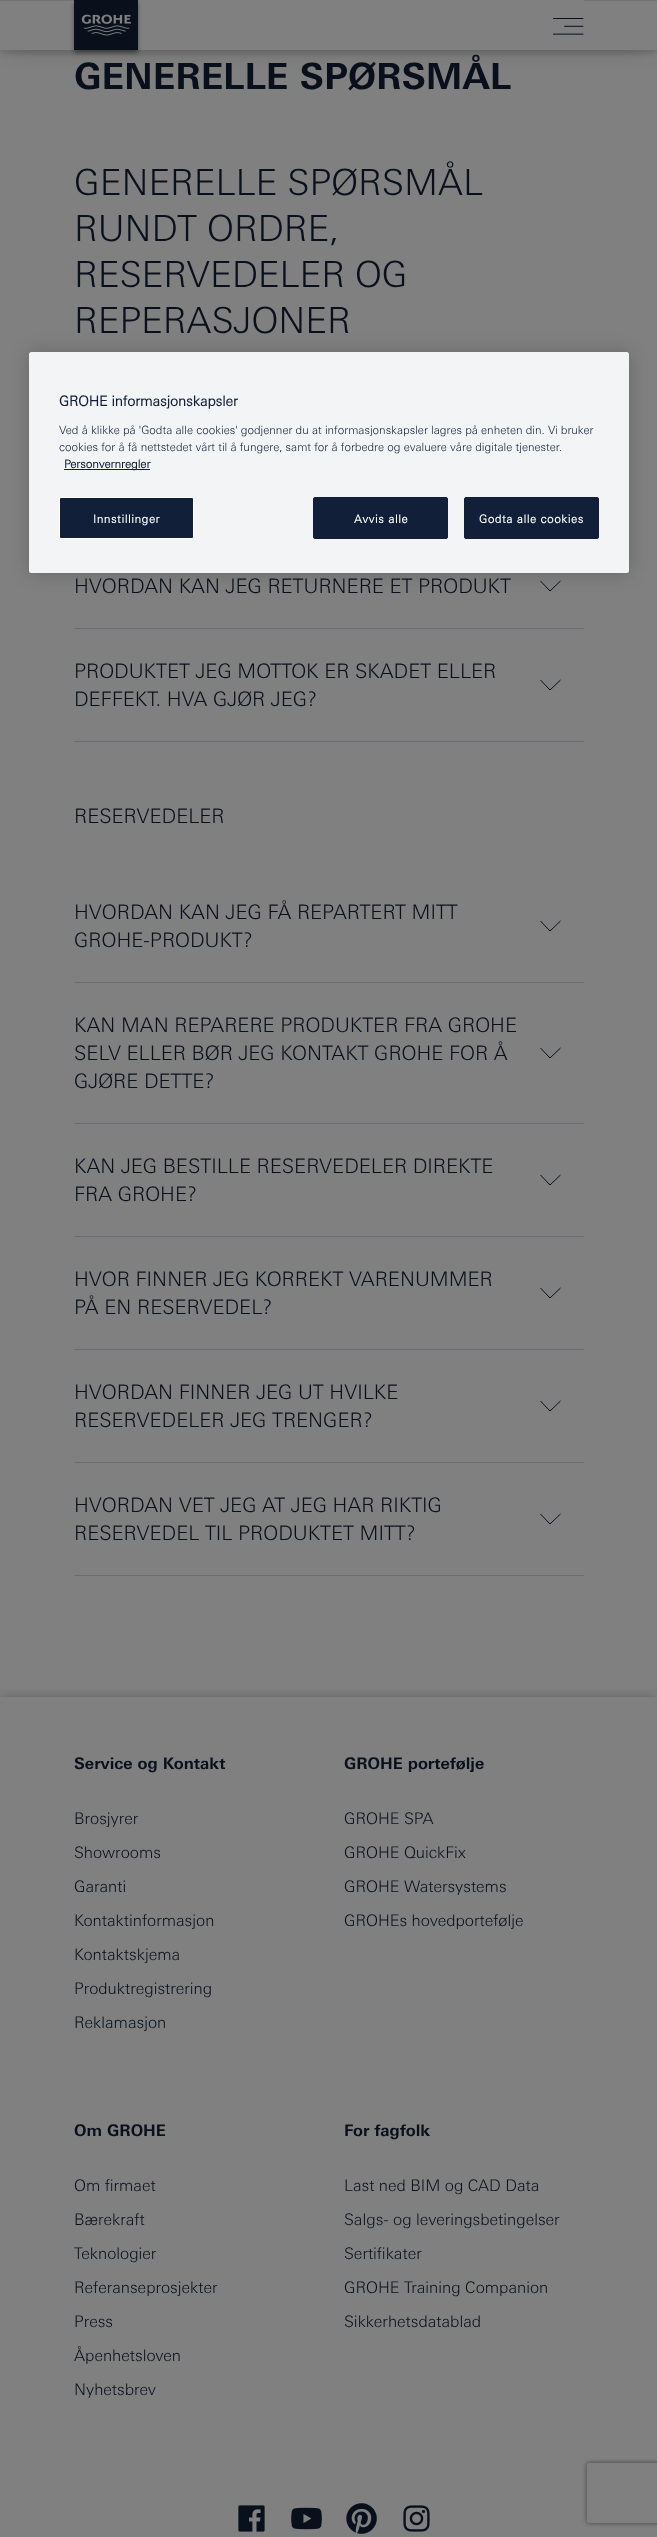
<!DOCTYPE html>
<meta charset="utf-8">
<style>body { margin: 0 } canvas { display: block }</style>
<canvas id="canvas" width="657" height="2537"></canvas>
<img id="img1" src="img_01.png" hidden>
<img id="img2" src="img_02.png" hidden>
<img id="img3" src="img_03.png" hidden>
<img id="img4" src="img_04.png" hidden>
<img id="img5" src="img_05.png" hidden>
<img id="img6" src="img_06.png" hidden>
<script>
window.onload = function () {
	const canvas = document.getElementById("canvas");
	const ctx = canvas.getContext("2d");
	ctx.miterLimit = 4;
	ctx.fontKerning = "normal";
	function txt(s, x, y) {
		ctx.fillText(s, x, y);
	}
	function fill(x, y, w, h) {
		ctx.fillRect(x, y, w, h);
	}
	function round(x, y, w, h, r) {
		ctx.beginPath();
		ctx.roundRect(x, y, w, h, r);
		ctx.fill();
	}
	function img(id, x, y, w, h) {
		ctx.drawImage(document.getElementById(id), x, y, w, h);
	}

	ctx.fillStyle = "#808080";
	fill(0, 0, 657, 2537);
	ctx.fillStyle = "rgba(0, 0, 0, 0.4)";
	ctx.filter = "blur(12px)";
	ctx.beginPath();
	ctx.rect(10, 13, 637, 30);
	ctx.fill();
	ctx.filter = "none";
	ctx.fillStyle = "rgba(0, 0, 0, 0.1)";
	ctx.filter = "blur(2.5px)";
	ctx.beginPath();
	ctx.rect(0, 4, 657, 50);
	ctx.fill();
	ctx.filter = "none";
	ctx.fillStyle = "#737373";
	fill(0, 0, 657, 1);
	ctx.fillStyle = "#808080";
	fill(138, 0, 446, 1);
	fill(0, 1, 657, 49);
	ctx.fillStyle = "rgba(0, 0, 0, 0.4)";
	ctx.filter = "blur(2px)";
	ctx.beginPath();
	ctx.rect(74, 3, 64, 50);
	ctx.fill();
	ctx.filter = "none";
	ctx.fillStyle = "#09101C";
	fill(74, 0, 64, 50);
	img("img1", 81, 14, 50, 22);
	img("img2", 553, 18, 31, 17);
	ctx.fillStyle = "#696C70";
	fill(74, 628, 510, 1);
	ctx.beginPath();
	ctx.moveTo(560.5, 581);
	ctx.lineTo(550, 591);
	ctx.lineTo(540.5, 581);
	ctx.strokeStyle = "#09101C";
	ctx.stroke();
	fill(74, 741, 510, 1);
	ctx.beginPath();
	ctx.moveTo(560.5, 680);
	ctx.lineTo(550, 690);
	ctx.lineTo(540.5, 680);
	ctx.stroke();
	fill(74, 982, 510, 1);
	ctx.beginPath();
	ctx.moveTo(560.5, 921);
	ctx.lineTo(550, 931);
	ctx.lineTo(540.5, 921);
	ctx.stroke();
	fill(74, 1123, 510, 1);
	ctx.beginPath();
	ctx.moveTo(560.5, 1048);
	ctx.lineTo(550, 1058);
	ctx.lineTo(540.5, 1048);
	ctx.stroke();
	fill(74, 1236, 510, 1);
	ctx.beginPath();
	ctx.moveTo(560.5, 1175);
	ctx.lineTo(550, 1185);
	ctx.lineTo(540.5, 1175);
	ctx.stroke();
	fill(74, 1349, 510, 1);
	ctx.beginPath();
	ctx.moveTo(560.5, 1288);
	ctx.lineTo(550, 1298);
	ctx.lineTo(540.5, 1288);
	ctx.stroke();
	fill(74, 1462, 510, 1);
	ctx.beginPath();
	ctx.moveTo(560.5, 1401);
	ctx.lineTo(550, 1411);
	ctx.lineTo(540.5, 1401);
	ctx.stroke();
	fill(74, 1575, 510, 1);
	ctx.beginPath();
	ctx.moveTo(560.5, 1514);
	ctx.lineTo(550, 1524);
	ctx.lineTo(540.5, 1514);
	ctx.stroke();
	ctx.save();
	ctx.beginPath();
	ctx.rect(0, 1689, 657, 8);
	ctx.clip();
	ctx.fillStyle = "rgba(0, 0, 0, 0.3)";
	ctx.filter = "blur(7px)";
	ctx.beginPath();
	ctx.rect(0, 1699, 657, 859);
	ctx.fill();
	ctx.filter = "none";
	ctx.restore();
	img("img3", 238, 2505, 27, 27);
	img("img4", 291, 2507, 31, 23);
	img("img5", 346, 2503, 31, 31);
	img("img6", 403, 2505, 27, 27);
	ctx.fillStyle = "rgba(0, 0, 0, 0.2)";
	ctx.filter = "blur(9px)";
	ctx.beginPath();
	ctx.roundRect(29, 352, 600, 221, 2.5);
	ctx.fill();
	ctx.filter = "none";
	ctx.fillStyle = "#F2F4F6";
	round(29, 352, 600, 221, 2.5);
	ctx.fillStyle = "#112038";
	fill(64, 469, 86, 1);
	ctx.beginPath();
	ctx.roundRect(59.5, 497.5, 134, 41, 1.5);
	ctx.fill();
	ctx.strokeStyle = "#FFFFFF";
	ctx.stroke();
	ctx.beginPath();
	ctx.roundRect(313.5, 497.5, 134, 41, 1.5);
	ctx.fill();
	ctx.strokeStyle = "#112038";
	ctx.stroke();
	ctx.beginPath();
	ctx.roundRect(464.5, 497.5, 134, 41, 1.5);
	ctx.fill();
	ctx.stroke();
	ctx.save();
	ctx.beginPath();
	ctx.moveTo(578, 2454);
	ctx.lineTo(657, 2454);
	ctx.lineTo(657, 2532);
	ctx.lineTo(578, 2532);
	ctx.closePath();
	ctx.moveTo(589, 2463);
	ctx.lineTo(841, 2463);
	ctx.bezierCurveTo(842, 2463, 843, 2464, 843, 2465);
	ctx.lineTo(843, 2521);
	ctx.bezierCurveTo(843, 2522, 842, 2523, 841, 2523);
	ctx.lineTo(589, 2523);
	ctx.bezierCurveTo(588, 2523, 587, 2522, 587, 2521);
	ctx.lineTo(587, 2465);
	ctx.bezierCurveTo(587, 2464, 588, 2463, 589, 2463);
	ctx.closePath();
	ctx.clip("evenodd");
	ctx.fillStyle = "#404040";
	ctx.filter = "blur(2.5px)";
	ctx.beginPath();
	ctx.roundRect(587, 2463, 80, 60, 2);
	ctx.fill();
	ctx.filter = "none";
	ctx.restore();
	ctx.font = "bold 36px 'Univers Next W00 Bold'";
	ctx.fillStyle = "#09101C";
	txt("GENERELLE SPØRSMÅL", 74, 89);
	ctx.font = "300 36px 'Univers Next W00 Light'";
	txt("GENERELLE SPØRSMÅL", 74, 195);
	txt("RUNDT ORDRE,", 74, 241);
	txt("RESERVEDELER OG", 74, 287);
	txt("REPERASJONER", 74, 333);
	ctx.font = "300 20px 'Univers Next W00 Light'";
	txt("HVORDAN KAN JEG RETURNERE ET PRODUKT", 74, 593);
	txt("PRODUKTET JEG MOTTOK ER SKADET ELLER", 74, 678);
	txt("DEFFEKT. HVA GJØR JEG?", 74, 706);
	txt("RESERVEDELER", 74, 823);
	txt("HVORDAN KAN JEG FÅ REPARTERT MITT", 74, 919);
	txt("GROHE-PRODUKT?", 74, 947);
	txt("KAN MAN REPARERE PRODUKTER FRA GROHE", 74, 1032);
	txt("SELV ELLER BØR JEG KONTAKT GROHE FOR Å", 74, 1060);
	txt("GJØRE DETTE?", 74, 1088);
	txt("KAN JEG BESTILLE RESERVEDELER DIREKTE", 74, 1173);
	txt("FRA GROHE?", 74, 1201);
	txt("HVOR FINNER JEG KORREKT VARENUMMER", 74, 1286);
	txt("PÅ EN RESERVEDEL?", 74, 1314);
	txt("HVORDAN FINNER JEG UT HVILKE", 74, 1399);
	txt("RESERVEDELER JEG TRENGER?", 74, 1427);
	txt("HVORDAN VET JEG AT JEG HAR RIKTIG", 74, 1512);
	txt("RESERVEDEL TIL PRODUKTET MITT?", 74, 1540);
	ctx.font = "bold 16px 'Univers Next W00 Bold'";
	txt("Service og Kontakt", 74, 1769);
	ctx.font = "300 16px 'Univers Next W00 Light'";
	txt("Brosjyrer", 74, 1824);
	txt("Showrooms", 74, 1858);
	txt("Garanti", 74, 1892);
	txt("Kontaktinformasjon", 74, 1926);
	txt("Kontaktskjema", 74, 1960);
	txt("Produktregistrering", 74, 1994);
	txt("Reklamasjon", 74, 2028);
	ctx.font = "bold 16px 'Univers Next W00 Bold'";
	txt("GROHE portefølje", 344, 1769);
	ctx.font = "300 16px 'Univers Next W00 Light'";
	txt("GROHE SPA", 344, 1824);
	txt("GROHE QuickFix", 344, 1858);
	txt("GROHE Watersystems", 344, 1892);
	txt("GROHEs hovedportefølje", 344, 1926);
	ctx.font = "bold 16px 'Univers Next W00 Bold'";
	txt("Om GROHE", 74, 2136);
	ctx.font = "300 16px 'Univers Next W00 Light'";
	txt("Om firmaet", 74, 2191);
	txt("Bærekraft", 74, 2225);
	txt("Teknologier", 74, 2259);
	txt("Referanseprosjekter", 74, 2293);
	txt("Press", 74, 2327);
	txt("Åpenhetsloven", 74, 2361);
	txt("Nyhetsbrev", 74, 2395);
	ctx.font = "bold 16px 'Univers Next W00 Bold'";
	txt("For fagfolk", 344, 2136);
	ctx.font = "300 16px 'Univers Next W00 Light'";
	txt("Last ned BIM og CAD Data", 344, 2191);
	txt("Salgs- og leveringsbetingelser", 344, 2225);
	txt("Sertifikater", 344, 2259);
	txt("GROHE Training Companion", 344, 2293);
	txt("Sikkerhetsdatablad", 344, 2327);
	ctx.font = "bold 14px 'Univers Next W00 Light'";
	ctx.fillStyle = "#112038";
	txt("GROHE informasjonskapsler", 59, 406);
	ctx.font = "300 11.4px 'Univers Next W00 Light'";
	txt("Ved å klikke på 'Godta alle cookies' godjenner du at informasjonskapsler lagres på enheten din. Vi bruker", 59, 434);
	txt("cookies for å få nettstedet vårt til å fungere, samt for å forbedre og evaluere våre digitale tjenester.", 59, 451);
	ctx.font = "bold 11.4px 'Univers Next W00 Light'";
	txt("Personvernregler", 64, 468);
	ctx.letterSpacing = "0.6px";
	ctx.fillStyle = "#FFFFFF";
	txt("Innstillinger", 93, 523);
	txt("Avvis alle", 354, 523);
	txt("Godta alle cookies", 479, 523);
};
</script>
